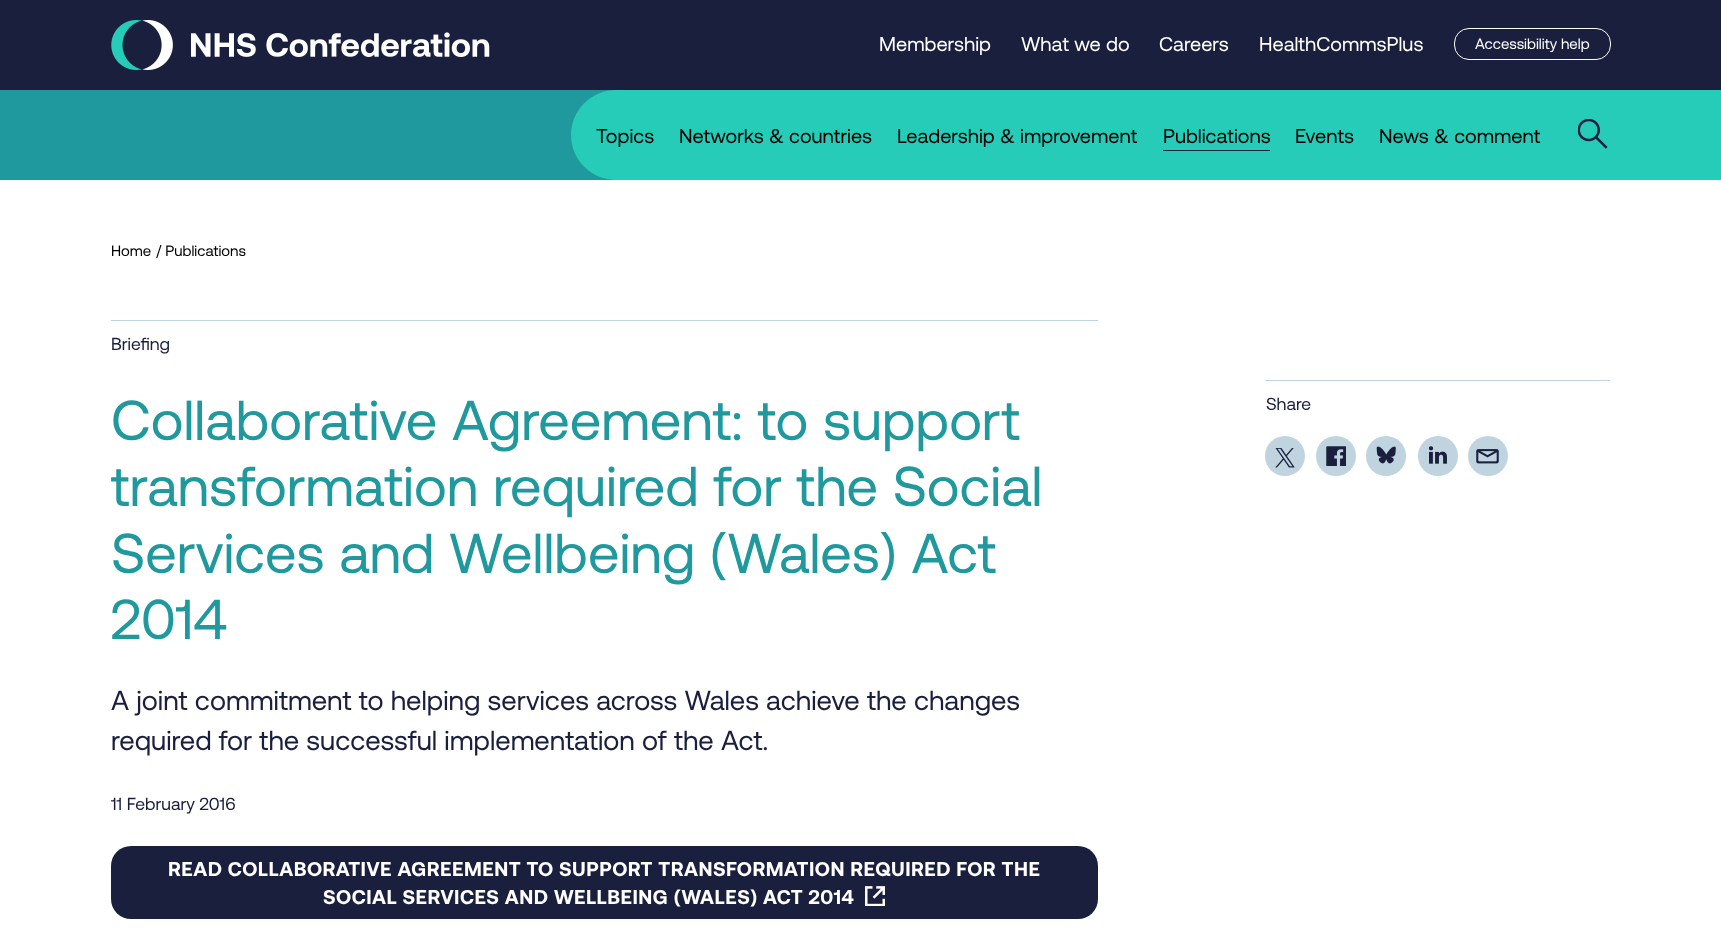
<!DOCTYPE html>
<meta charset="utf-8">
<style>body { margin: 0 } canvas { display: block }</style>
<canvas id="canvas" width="1721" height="943"></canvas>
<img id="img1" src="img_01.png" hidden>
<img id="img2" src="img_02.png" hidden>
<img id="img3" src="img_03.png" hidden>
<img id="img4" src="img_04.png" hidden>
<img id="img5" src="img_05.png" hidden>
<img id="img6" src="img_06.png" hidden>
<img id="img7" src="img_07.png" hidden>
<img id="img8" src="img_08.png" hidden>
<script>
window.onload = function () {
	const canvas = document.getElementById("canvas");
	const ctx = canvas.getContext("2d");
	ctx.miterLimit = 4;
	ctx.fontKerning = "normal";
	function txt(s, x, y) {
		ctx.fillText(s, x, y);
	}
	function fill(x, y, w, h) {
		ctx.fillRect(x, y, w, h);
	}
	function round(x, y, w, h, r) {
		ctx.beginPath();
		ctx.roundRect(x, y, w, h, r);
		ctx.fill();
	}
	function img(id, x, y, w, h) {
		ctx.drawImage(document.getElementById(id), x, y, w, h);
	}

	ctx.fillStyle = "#FFFFFF";
	fill(0, 0, 1721, 943);
	ctx.fillStyle = "#1A1F3E";
	fill(0, 0, 1721, 90);
	img("img1", 111, 20, 379, 50);
	ctx.beginPath();
	ctx.roundRect(1454.5, 28.5, 156, 31, 14.5);
	ctx.strokeStyle = "#FFFFFF";
	ctx.stroke();
	ctx.fillStyle = "#1F999E";
	fill(0, 90, 616, 90);
	ctx.fillStyle = "#26CCB8";
	ctx.beginPath();
	ctx.roundRect(571, 90, 1080, 90, [45, 0, 0, 45]);
	ctx.fill();
	ctx.fillStyle = "#1A1F3E";
	fill(1163, 150, 107, 1);
	img("img2", 1578, 119, 30, 30);
	ctx.fillStyle = "#26CCB8";
	fill(1651, 90, 70, 90);
	ctx.fillStyle = "#BFD4DE";
	fill(111, 320, 987, 1);
	ctx.fillStyle = "#1A1F3E";
	round(111, 846, 987, 73, 20);
	img("img3", 865, 886, 20, 20);
	ctx.fillStyle = "#BFD4DE";
	fill(1265, 380, 345, 1);
	ctx.beginPath();
	ctx.arc(1285, 456, 20, 0, Math.PI * 2);
	ctx.fill();
	img("img4", 1275, 448, 20, 20);
	ctx.beginPath();
	ctx.arc(1336, 456, 20, 0, Math.PI * 2);
	ctx.fill();
	img("img5", 1326, 446, 20, 20);
	ctx.beginPath();
	ctx.arc(1386, 456, 20, 0, Math.PI * 2);
	ctx.fill();
	img("img6", 1376, 446, 20, 18);
	ctx.beginPath();
	ctx.arc(1438, 456, 20, 0, Math.PI * 2);
	ctx.fill();
	img("img7", 1429, 446, 18, 18);
	ctx.beginPath();
	ctx.arc(1488, 456, 20, 0, Math.PI * 2);
	ctx.fill();
	img("img8", 1476, 449, 23, 15);
	ctx.font = "20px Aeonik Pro";
	ctx.fillStyle = "#FFFFFF";
	txt("Membership", 879, 51);
	txt("What we do", 1021, 51);
	txt("Careers", 1159, 51);
	txt("HealthCommsPlus", 1259, 51);
	ctx.font = "15px Aeonik Pro";
	txt("Accessibility help", 1475, 49);
	ctx.font = "20px Aeonik Pro";
	ctx.fillStyle = "#000000";
	txt("Topics", 596, 143);
	txt("Networks & countries", 679, 143);
	txt("Leadership & improvement", 897, 143);
	txt("Publications", 1163, 143);
	txt("Events", 1295, 143);
	txt("News & comment", 1379, 143);
	ctx.font = "15px Aeonik Pro";
	txt("Home", 111, 256);
	txt("/ Publications", 156, 256);
	ctx.font = "17.5px Aeonik Pro";
	ctx.fillStyle = "#1A1F3E";
	txt("Briefing", 111, 350);
	ctx.font = "56.25px Aeonik Pro";
	ctx.fillStyle = "#1F999E";
	txt("Collaborative Agreement: to support", 111, 440);
	txt("transformation required for the Social", 111, 506);
	txt("Services and Wellbeing (Wales) Act", 111, 573);
	txt("2014", 111, 639);
	ctx.font = "27.5px Aeonik Pro";
	ctx.fillStyle = "#1A1F3E";
	txt("A joint commitment to helping services across Wales achieve the changes", 111, 710);
	txt("required for the successful implementation of the Act.", 111, 750);
	ctx.font = "17.5px Aeonik Pro";
	txt("11 February 2016", 111, 810);
	ctx.letterSpacing = "0.5px";
	ctx.font = "bold 20px Aeonik Pro";
	ctx.fillStyle = "#FFFFFF";
	txt("READ COLLABORATIVE AGREEMENT TO SUPPORT TRANSFORMATION REQUIRED FOR THE", 168, 876);
	txt("SOCIAL SERVICES AND WELLBEING (WALES) ACT 2014", 323, 904);
	ctx.letterSpacing = "0px";
	ctx.font = "17.5px Aeonik Pro";
	ctx.fillStyle = "#1A1F3E";
	txt("Share", 1266, 410);
};
</script>
